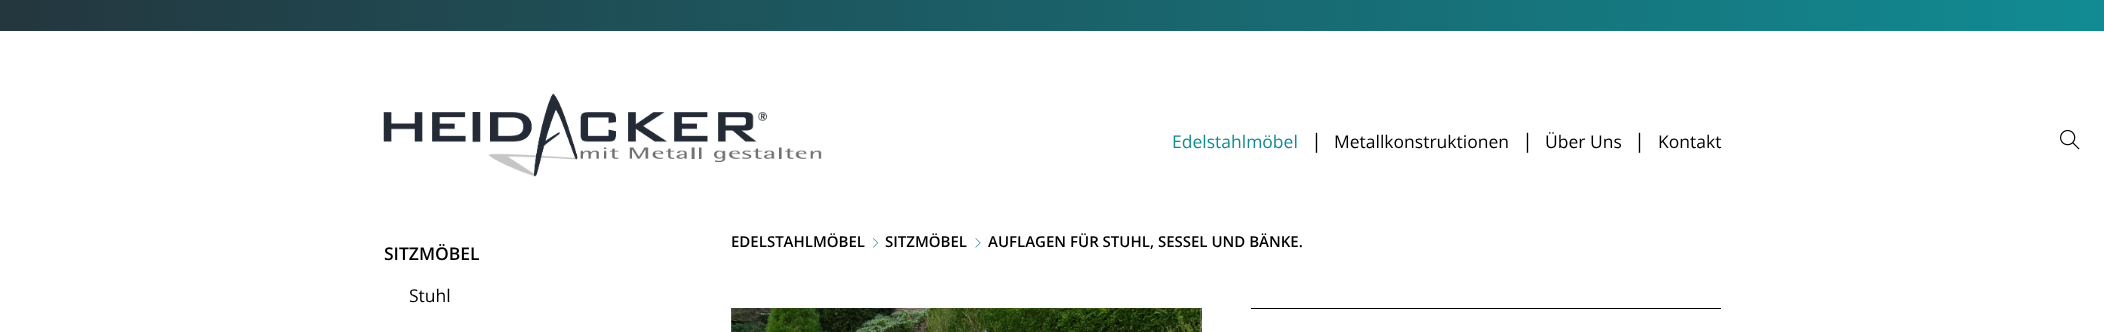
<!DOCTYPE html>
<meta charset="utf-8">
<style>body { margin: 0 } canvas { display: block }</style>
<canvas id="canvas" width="2104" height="332"></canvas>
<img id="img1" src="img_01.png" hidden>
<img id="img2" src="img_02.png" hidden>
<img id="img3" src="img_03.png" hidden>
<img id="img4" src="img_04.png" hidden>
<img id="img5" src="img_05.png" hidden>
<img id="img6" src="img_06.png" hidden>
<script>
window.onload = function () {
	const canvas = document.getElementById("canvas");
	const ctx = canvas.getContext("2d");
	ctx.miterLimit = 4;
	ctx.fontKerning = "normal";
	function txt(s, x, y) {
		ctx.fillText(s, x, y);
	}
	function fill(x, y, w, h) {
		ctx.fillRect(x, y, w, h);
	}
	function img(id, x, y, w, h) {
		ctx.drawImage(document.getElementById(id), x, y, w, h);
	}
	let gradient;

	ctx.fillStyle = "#FFFFFF";
	fill(0, 0, 2104, 332);
	gradient = ctx.createLinearGradient(0, 16, 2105, 16);
	gradient.addColorStop(0, "#24363E");
	gradient.addColorStop(1, "#118B93");
	ctx.fillStyle = gradient;
	fill(0, 0, 2104, 31);
	img("img1", 383, 93, 439, 84);
	img("img2", 2060, 130, 20, 20);
	img("img3", 873, 238, 6, 10);
	img("img4", 975, 238, 6, 10);
	img("img5", 731, 308, 470, 24);
	img("img6", 1201, 308, 1, 24);
	ctx.fillStyle = "#000000";
	fill(1251, 308, 470, 1);
	ctx.font = "17.5px Open Sans";
	ctx.fillStyle = "#118B93";
	txt("Edelstahlmöbel", 1172, 148);
	ctx.font = "20px Open Sans";
	ctx.fillStyle = "#000000";
	txt("|", 1311, 148);
	ctx.font = "17.5px Open Sans";
	txt("Metallkonstruktionen", 1334, 148);
	ctx.font = "20px Open Sans";
	txt("|", 1522, 148);
	ctx.font = "17.5px Open Sans";
	txt("Über Uns", 1545, 148);
	ctx.font = "20px Open Sans";
	txt("|", 1634, 148);
	ctx.font = "17.5px Open Sans";
	txt("Kontakt", 1658, 148);
	ctx.font = "600 15px Open Sans";
	txt("EDELSTAHLMÖBEL", 731, 247);
	txt("SITZMÖBEL", 885, 247);
	txt("AUFLAGEN FÜR STUHL, SESSEL UND BÄNKE.", 988, 247);
	ctx.font = "600 17.5px Open Sans";
	txt("SITZMÖBEL", 384, 260);
	ctx.font = "17.5px Open Sans";
	txt("Stuhl", 409, 302);
};
</script>
